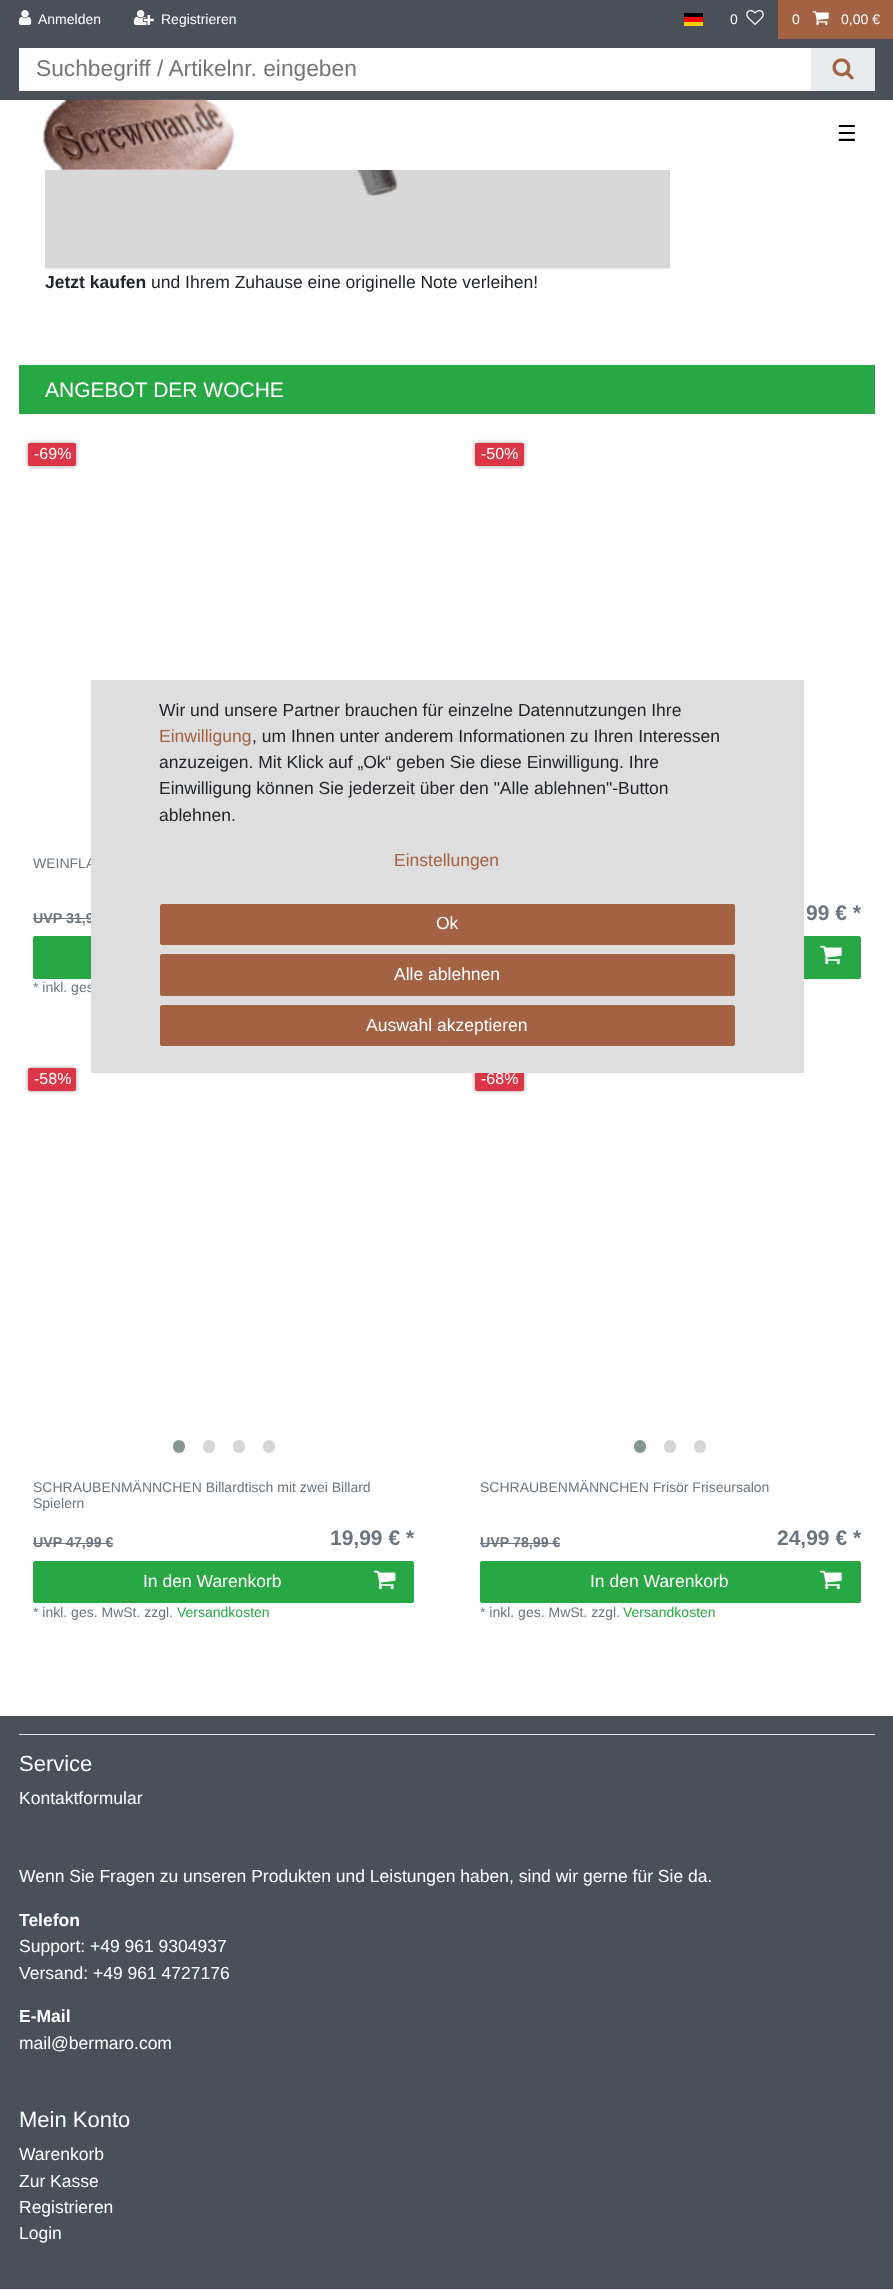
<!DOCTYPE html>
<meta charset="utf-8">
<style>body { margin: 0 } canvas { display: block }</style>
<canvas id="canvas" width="893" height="2290"></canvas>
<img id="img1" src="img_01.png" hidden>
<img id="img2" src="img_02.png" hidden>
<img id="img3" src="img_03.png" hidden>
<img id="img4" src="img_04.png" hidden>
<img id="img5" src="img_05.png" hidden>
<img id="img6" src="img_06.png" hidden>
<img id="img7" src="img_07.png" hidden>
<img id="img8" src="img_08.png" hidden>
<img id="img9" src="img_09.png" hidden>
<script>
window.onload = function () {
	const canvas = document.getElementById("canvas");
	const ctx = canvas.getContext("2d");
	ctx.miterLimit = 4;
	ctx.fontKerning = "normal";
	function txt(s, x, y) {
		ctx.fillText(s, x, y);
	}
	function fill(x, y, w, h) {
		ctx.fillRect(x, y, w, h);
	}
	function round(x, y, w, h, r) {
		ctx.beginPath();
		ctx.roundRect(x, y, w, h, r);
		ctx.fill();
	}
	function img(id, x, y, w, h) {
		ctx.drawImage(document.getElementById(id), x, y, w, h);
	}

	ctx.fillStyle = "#FFFFFF";
	fill(0, 0, 893, 2290);
	ctx.fillStyle = "#495057";
	fill(0, 0, 893, 100);
	img("img1", 18, 10, 14, 15);
	img("img2", 133, 10, 21, 15);
	ctx.fillStyle = "#FFCC00";
	fill(684, 22, 19, 4);
	ctx.fillStyle = "#000000";
	fill(684, 13, 19, 4);
	ctx.fillStyle = "#FF0000";
	fill(684, 17, 19, 5);
	img("img3", 746, 10, 18, 15);
	ctx.fillStyle = "#A36243";
	fill(778, 0, 115, 39);
	img("img4", 812, 11, 17, 14);
	ctx.fillStyle = "#FFFFFF";
	fill(19, 48, 792, 43);
	ctx.fillStyle = "#E9ECEF";
	fill(811, 48, 64, 43);
	img("img5", 832, 58, 22, 22);
	img("img6", 42, 99, 193, 71);
	img("img7", 45, 170, 625, 99);
	ctx.fillStyle = "#28A745";
	fill(19, 365, 856, 49);
	ctx.fillStyle = "rgba(0, 0, 0, 0.4)";
	ctx.filter = "blur(2px)";
	ctx.beginPath();
	ctx.roundRect(28, 443, 48, 23, 2);
	ctx.fill();
	ctx.filter = "none";
	ctx.fillStyle = "#DC3545";
	round(28, 443, 48, 23, 2);
	ctx.fillStyle = "#6C757D";
	fill(33, 918, 58, 1);
	ctx.fillStyle = "#28A745";
	ctx.beginPath();
	ctx.roundRect(33.5, 936.5, 380, 42, 1.5);
	ctx.fill();
	ctx.strokeStyle = "#28A745";
	ctx.stroke();
	ctx.fillStyle = "rgba(0, 0, 0, 0.4)";
	ctx.filter = "blur(2px)";
	ctx.beginPath();
	ctx.roundRect(475, 443, 49, 23, 2);
	ctx.fill();
	ctx.filter = "none";
	ctx.fillStyle = "#DC3545";
	round(475, 443, 49, 23, 2);
	ctx.fillStyle = "#28A745";
	ctx.beginPath();
	ctx.roundRect(480.5, 936.5, 380, 42, 1.5);
	ctx.fill();
	ctx.stroke();
	img("img8", 820, 945, 22, 20);
	ctx.fillStyle = "rgba(0, 0, 0, 0.4)";
	ctx.filter = "blur(2px)";
	ctx.beginPath();
	ctx.roundRect(28, 1068, 48, 23, 2);
	ctx.fill();
	ctx.filter = "none";
	ctx.fillStyle = "#DC3545";
	round(28, 1068, 48, 23, 2);
	ctx.fillStyle = "#869791";
	round(173, 1440, 12, 13, 6);
	ctx.fillStyle = "#D6D6D6";
	round(203, 1440, 12, 13, 6);
	round(233, 1440, 12, 13, 6);
	round(263, 1440, 12, 13, 6);
	ctx.fillStyle = "#6C757D";
	fill(33, 1543, 80, 1);
	ctx.fillStyle = "#28A745";
	ctx.beginPath();
	ctx.roundRect(33.5, 1561.5, 380, 41, 1.5);
	ctx.fill();
	ctx.stroke();
	img("img9", 373, 1570, 23, 20);
	ctx.fillStyle = "rgba(0, 0, 0, 0.4)";
	ctx.filter = "blur(2px)";
	ctx.beginPath();
	ctx.roundRect(475, 1068, 49, 23, 2);
	ctx.fill();
	ctx.filter = "none";
	ctx.fillStyle = "#DC3545";
	round(475, 1068, 49, 23, 2);
	ctx.fillStyle = "#869791";
	round(634, 1440, 12, 13, 6);
	ctx.fillStyle = "#D6D6D6";
	round(664, 1440, 12, 13, 6);
	round(694, 1440, 12, 13, 6);
	ctx.fillStyle = "#6C757D";
	fill(480, 1543, 80, 1);
	ctx.fillStyle = "#28A745";
	ctx.beginPath();
	ctx.roundRect(480.5, 1561.5, 380, 41, 1.5);
	ctx.fill();
	ctx.stroke();
	img("img8", 820, 1570, 22, 20);
	ctx.fillStyle = "#495057";
	fill(0, 1716, 893, 573);
	ctx.fillStyle = "#DEE2E6";
	fill(0, 2289, 893, 1);
	fill(19, 1734, 856, 1);
	ctx.font = "14px Liberation Sans";
	ctx.fillStyle = "#FFFFFF";
	txt("Anmelden", 38, 24);
	txt("Registrieren", 161, 24);
	txt("0", 730, 24);
	txt("0", 792, 24);
	txt("0,00 €", 841, 24);
	ctx.font = "22.75px Liberation Sans";
	ctx.fillStyle = "#757575";
	txt("Suchbegriff / Artikelnr. eingeben", 36, 76);
	ctx.font = "22px DejaVu Sans";
	ctx.fillStyle = "#000000";
	txt("☰", 837, 141);
	ctx.font = "bold 17.5px Liberation Sans";
	ctx.fillStyle = "#212529";
	txt("Jetzt kaufen", 45, 288);
	ctx.font = "17.5px Liberation Sans";
	txt("und Ihrem Zuhause eine originelle Note verleihen!", 151, 288);
	ctx.font = "21px Liberation Sans";
	ctx.fillStyle = "#FFFFFF";
	txt("ANGEBOT DER WOCHE", 45, 397);
	ctx.font = "16px Liberation Sans";
	txt("-69%", 34, 459);
	ctx.font = "14px Liberation Sans";
	ctx.fillStyle = "#6C757D";
	txt("WEINFLA", 33, 868);
	ctx.font = "bold 14.25px Liberation Sans";
	txt("UVP 31,9", 33, 923);
	ctx.font = "14px Liberation Sans";
	txt("* inkl. ges", 33, 992);
	ctx.font = "16px Liberation Sans";
	ctx.fillStyle = "#FFFFFF";
	txt("-50%", 481, 459);
	ctx.font = "bold 21px Liberation Sans";
	ctx.fillStyle = "#6C757D";
	txt("99 € *", 806, 920);
	ctx.font = "16px Liberation Sans";
	ctx.fillStyle = "#FFFFFF";
	txt("-58%", 34, 1084);
	ctx.font = "14px Liberation Sans";
	ctx.fillStyle = "#6C757D";
	txt("SCHRAUBENMÄNNCHEN Billardtisch mit zwei Billard", 33, 1492);
	txt("Spielern", 33, 1508);
	ctx.font = "bold 14.25px Liberation Sans";
	txt("UVP 47,99 €", 33, 1547);
	ctx.font = "bold 21px Liberation Sans";
	txt("19,99 € *", 330, 1545);
	ctx.font = "17.5px Liberation Sans";
	ctx.fillStyle = "#FFFFFF";
	txt("In den Warenkorb", 143, 1587);
	ctx.font = "14px Liberation Sans";
	ctx.fillStyle = "#6C757D";
	txt("* inkl. ges. MwSt. zzgl.", 33, 1617);
	ctx.fillStyle = "#28A745";
	txt("Versandkosten", 177, 1617);
	ctx.font = "16px Liberation Sans";
	ctx.fillStyle = "#FFFFFF";
	txt("-68%", 481, 1084);
	ctx.font = "14px Liberation Sans";
	ctx.fillStyle = "#6C757D";
	txt("SCHRAUBENMÄNNCHEN Frisör Friseursalon", 480, 1492);
	ctx.font = "bold 14.25px Liberation Sans";
	txt("UVP 78,99 €", 480, 1547);
	ctx.font = "bold 21px Liberation Sans";
	txt("24,99 € *", 777, 1545);
	ctx.font = "17.5px Liberation Sans";
	ctx.fillStyle = "#FFFFFF";
	txt("In den Warenkorb", 590, 1587);
	ctx.font = "14px Liberation Sans";
	ctx.fillStyle = "#6C757D";
	txt("* inkl. ges. MwSt. zzgl.", 480, 1617);
	ctx.fillStyle = "#28A745";
	txt("Versandkosten", 623, 1617);
	ctx.fillStyle = "#DEDEDE";
	fill(91, 680, 713, 393);
	ctx.font = "17.5px Liberation Sans";
	ctx.fillStyle = "#212529";
	txt("Wir und unsere Partner brauchen für einzelne Datennutzungen Ihre", 159, 716);
	ctx.fillStyle = "#A36243";
	txt("Einwilligung", 159, 742);
	ctx.fillStyle = "#212529";
	txt(", um Ihnen unter anderem Informationen zu Ihren Interessen", 252, 742);
	txt("anzuzeigen. Mit Klick auf „Ok“ geben Sie diese Einwilligung. Ihre", 159, 768);
	txt("Einwilligung können Sie jederzeit über den \"Alle ablehnen\"-Button", 159, 794);
	txt("ablehnen.", 159, 821);
	ctx.fillStyle = "#A36243";
	txt("Einstellungen", 394, 866);
	ctx.beginPath();
	ctx.roundRect(160.5, 904.5, 574, 40, 1.5);
	ctx.fill();
	ctx.strokeStyle = "#A36243";
	ctx.stroke();
	ctx.fillStyle = "#FFFFFF";
	txt("Ok", 436, 929);
	ctx.fillStyle = "#A36243";
	ctx.beginPath();
	ctx.roundRect(160.5, 954.5, 574, 41, 1.5);
	ctx.fill();
	ctx.stroke();
	ctx.fillStyle = "#FFFFFF";
	txt("Alle ablehnen", 394, 980);
	ctx.fillStyle = "#A36243";
	ctx.beginPath();
	ctx.roundRect(160.5, 1005.5, 574, 40, 1.5);
	ctx.fill();
	ctx.stroke();
	ctx.fillStyle = "#FFFFFF";
	txt("Auswahl akzeptieren", 366, 1031);
	ctx.font = "22px Liberation Sans";
	txt("Service", 19, 1771);
	ctx.font = "17.5px Liberation Sans";
	txt("Kontaktformular", 19, 1804);
	txt("Wenn Sie Fragen zu unseren Produkten und Leistungen haben, sind wir gerne für Sie da.", 19, 1882);
	ctx.font = "bold 17.5px Liberation Sans";
	txt("Telefon", 19, 1926);
	ctx.font = "17.5px Liberation Sans";
	txt("Support: +49 961 9304937", 19, 1952);
	txt("Versand: +49 961 4727176", 19, 1979);
	ctx.font = "bold 17.5px Liberation Sans";
	txt("E-Mail", 19, 2022);
	ctx.font = "17.5px Liberation Sans";
	txt("mail@bermaro.com", 19, 2049);
	ctx.font = "22px Liberation Sans";
	txt("Mein Konto", 19, 2127);
	ctx.font = "17.5px Liberation Sans";
	txt("Warenkorb", 19, 2160);
	txt("Zur Kasse", 19, 2187);
	txt("Registrieren", 19, 2213);
	txt("Login", 19, 2239);
};
</script>
